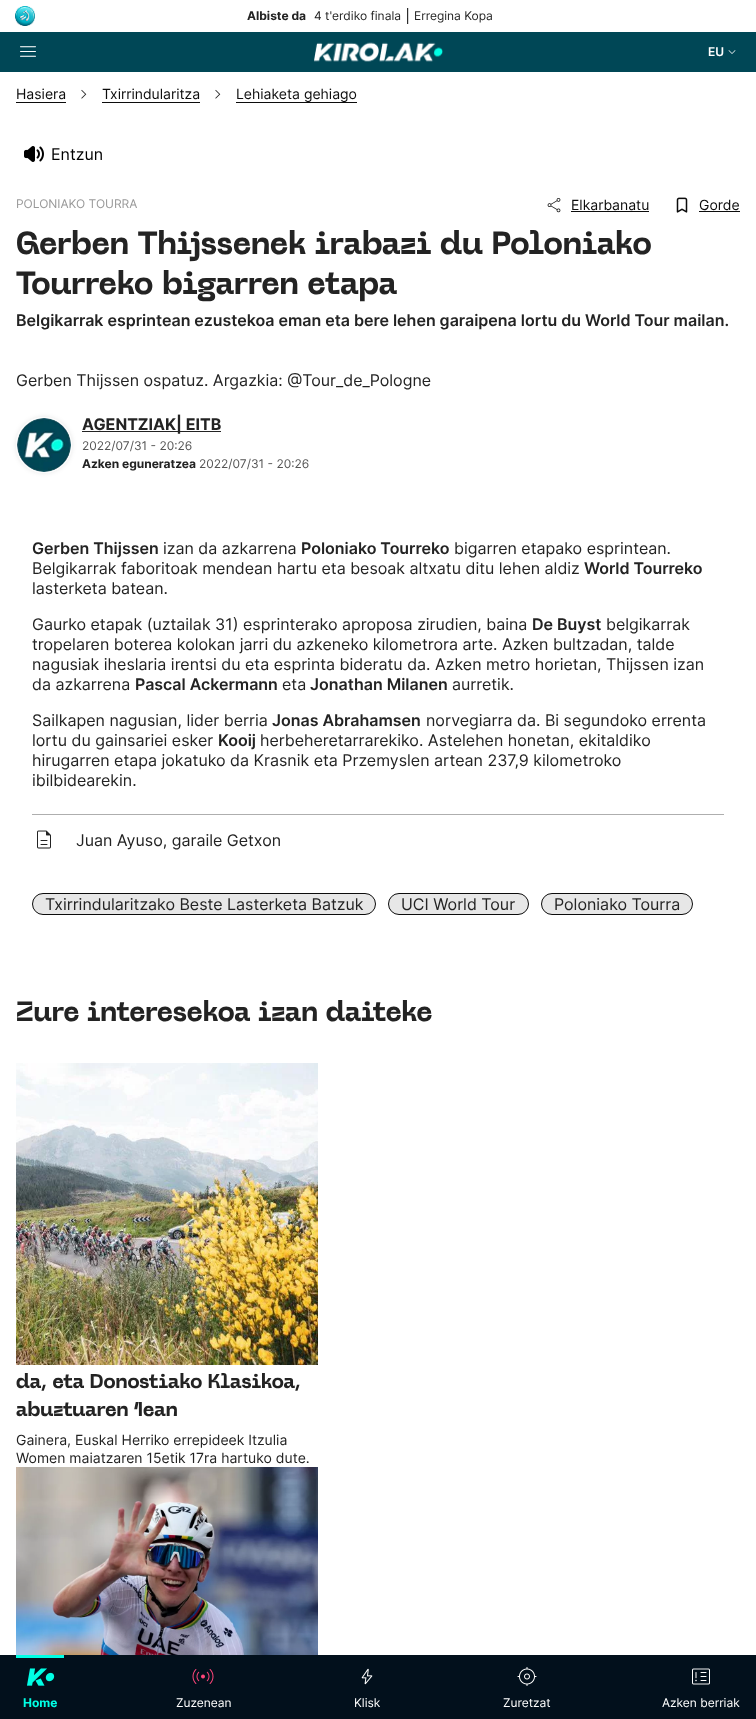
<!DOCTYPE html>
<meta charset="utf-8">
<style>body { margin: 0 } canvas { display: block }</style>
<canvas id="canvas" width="756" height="1719"></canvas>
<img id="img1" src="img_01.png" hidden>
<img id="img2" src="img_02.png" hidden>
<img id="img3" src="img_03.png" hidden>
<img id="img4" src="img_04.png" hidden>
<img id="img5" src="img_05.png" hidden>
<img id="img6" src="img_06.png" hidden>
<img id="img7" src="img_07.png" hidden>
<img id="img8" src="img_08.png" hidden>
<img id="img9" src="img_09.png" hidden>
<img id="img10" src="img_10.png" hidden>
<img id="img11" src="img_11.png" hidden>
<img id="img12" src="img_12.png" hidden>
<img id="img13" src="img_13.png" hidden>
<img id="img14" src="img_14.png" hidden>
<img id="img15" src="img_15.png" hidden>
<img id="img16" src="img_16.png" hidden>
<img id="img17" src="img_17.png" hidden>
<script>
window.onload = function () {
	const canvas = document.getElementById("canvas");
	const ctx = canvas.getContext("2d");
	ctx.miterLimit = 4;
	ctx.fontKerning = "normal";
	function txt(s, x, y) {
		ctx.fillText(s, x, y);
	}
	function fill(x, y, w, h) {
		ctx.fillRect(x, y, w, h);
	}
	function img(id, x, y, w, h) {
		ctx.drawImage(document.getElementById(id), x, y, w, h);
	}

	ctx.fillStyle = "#FFFFFF";
	fill(0, 0, 756, 1719);
	img("img1", 15, 6, 20, 20);
	ctx.fillStyle = "#004756";
	fill(0, 32, 756, 40);
	img("img2", 20, 46, 16, 11);
	img("img3", 314, 42, 129, 20);
	img("img4", 728, 50, 8, 4);
	ctx.fillStyle = "#0C0C0C";
	fill(16, 102, 50, 1);
	img("img5", 81, 89, 6, 10);
	fill(102, 102, 98, 1);
	img("img5", 215, 89, 6, 10);
	fill(236, 102, 121, 1);
	img("img6", 24, 146, 20, 16);
	img("img7", 547, 198, 14, 15);
	fill(571, 211, 78, 1);
	img("img8", 676, 197, 12, 16);
	fill(699, 211, 41, 1);
	ctx.save();
	ctx.beginPath();
	ctx.moveTo(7, 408);
	ctx.lineTo(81, 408);
	ctx.lineTo(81, 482);
	ctx.lineTo(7, 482);
	ctx.closePath();
	ctx.moveTo(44, 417);
	ctx.bezierCurveTo(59.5, 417, 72, 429.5, 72, 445);
	ctx.bezierCurveTo(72, 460.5, 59.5, 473, 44, 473);
	ctx.bezierCurveTo(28.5, 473, 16, 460.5, 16, 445);
	ctx.bezierCurveTo(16, 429.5, 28.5, 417, 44, 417);
	ctx.closePath();
	ctx.clip("evenodd");
	ctx.fillStyle = "rgba(0, 0, 0, 0.1)";
	ctx.filter = "blur(2.5px)";
	ctx.beginPath();
	ctx.roundRect(16, 417, 56, 56, 28);
	ctx.fill();
	ctx.filter = "none";
	ctx.restore();
	ctx.beginPath();
	ctx.arc(44, 445, 27.5, 0, Math.PI * 2);
	ctx.strokeStyle = "#FCFCFC";
	ctx.stroke();
	img("img9", 17, 418, 54, 54);
	ctx.fillStyle = "#232323";
	fill(82, 431, 139, 1);
	ctx.fillStyle = "#AEAEAE";
	fill(32, 814, 692, 1);
	img("img10", 37, 830, 14, 19);
	ctx.fillStyle = "#E7E7E7";
	ctx.beginPath();
	ctx.roundRect(32.5, 893.5, 343, 21, 10.5);
	ctx.fill();
	ctx.strokeStyle = "#0C0C0C";
	ctx.stroke();
	ctx.beginPath();
	ctx.roundRect(388.5, 893.5, 140, 21, 10.5);
	ctx.fill();
	ctx.stroke();
	ctx.beginPath();
	ctx.roundRect(541.5, 893.5, 151, 21, 10.5);
	ctx.fill();
	ctx.stroke();
	img("img11", 16, 1063, 302, 302);
	img("img12", 16, 1467, 302, 188);
	ctx.fillStyle = "#02101C";
	fill(0, 1655, 756, 64);
	ctx.fillStyle = "#00FFE5";
	fill(16, 1655, 48, 3);
	img("img13", 27, 1668, 28, 18);
	img("img14", 192, 1669, 22, 15);
	img("img15", 361, 1668, 12, 17);
	img("img16", 517, 1667, 20, 19);
	img("img17", 692, 1668, 18, 17);
	ctx.font = "bold 12px Inter";
	ctx.fillStyle = "#232323";
	txt("Albiste da", 247, 20);
	ctx.font = "12px Inter";
	txt("4 t'erdiko finala", 314, 20);
	ctx.save();
	ctx.beginPath();
	ctx.rect(314, 8, 179, 16);
	ctx.clip();
	ctx.font = "16px Inter";
	txt("|", 405, 22);
	ctx.restore();
	txt("Erregina Kopa", 414, 20);
	ctx.font = "600 12px Inter";
	ctx.fillStyle = "#FFFFFF";
	txt("EU", 708, 56);
	ctx.font = "14px Inter";
	ctx.fillStyle = "#0C0C0C";
	txt("Hasiera", 16, 99);
	txt("Txirrindularitza", 102, 99);
	txt("Lehiaketa gehiago", 236, 99);
	ctx.font = "16px Inter";
	ctx.fillStyle = "#000000";
	txt("Entzun", 51, 160);
	ctx.font = "12px Inter";
	ctx.fillStyle = "#999999";
	txt("POLONIAKO TOURRA", 16, 208);
	ctx.font = "14px Inter";
	ctx.fillStyle = "#0C0C0C";
	txt("Elkarbanatu", 571, 210);
	txt("Gorde", 699, 210);
	ctx.font = "bold 32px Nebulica";
	ctx.fillStyle = "#232323";
	txt("Gerben Thijssenek irabazi du Poloniako", 16, 254);
	txt("Tourreko bigarren etapa", 16, 294);
	ctx.font = "600 16px Inter";
	txt("Belgikarrak esprintean ezustekoa eman eta bere lehen garaipena lortu du World Tour mailan.", 16, 326);
	ctx.font = "16px Inter";
	txt("Gerben Thijssen ospatuz. Argazkia: @Tour_de_Pologne", 16, 386);
	ctx.font = "bold 16px Inter";
	txt("AGENTZIAK| EITB", 82, 430);
	ctx.font = "12px Inter";
	ctx.fillStyle = "#555555";
	txt("2022/07/31 - 20:26", 82, 450);
	ctx.font = "bold 12px Inter";
	ctx.fillStyle = "#232323";
	txt("Azken eguneratzea", 82, 468);
	ctx.font = "12px Inter";
	ctx.fillStyle = "#555555";
	txt("2022/07/31 - 20:26", 199, 468);
	ctx.font = "600 16px Inter";
	ctx.fillStyle = "#232323";
	txt("Gerben Thijssen", 32, 554);
	ctx.font = "16px Inter";
	txt("izan da azkarrena", 163, 554);
	ctx.font = "600 16px Inter";
	txt("Poloniako Tourreko", 301, 554);
	ctx.font = "16px Inter";
	txt("bigarren etapako esprintean.", 454, 554);
	txt("Belgikarrak faboritoak mendean hartu eta besoak altxatu ditu lehen aldiz", 32, 574);
	ctx.font = "600 16px Inter";
	txt("World Tourreko", 584, 574);
	ctx.font = "16px Inter";
	txt("lasterketa batean.", 32, 594);
	txt("Gaurko etapak (uztailak 31) esprinterako aproposa zirudien, baina", 32, 630);
	ctx.font = "600 16px Inter";
	txt("De Buyst", 532, 630);
	ctx.font = "16px Inter";
	txt("belgikarrak", 606, 630);
	txt("tropelaren boterea kolokan jarri du azkeneko kilometrora arte. Azken bultzadan, talde", 32, 650);
	txt("nagusiak iheslaria irentsi du eta esprinta bideratu da. Azken metro horietan, Thijssen izan", 32, 670);
	txt("da azkarrena", 32, 690);
	ctx.font = "600 16px Inter";
	txt("Pascal Ackermann", 135, 690);
	ctx.font = "16px Inter";
	txt("eta", 282, 690);
	ctx.font = "600 16px Inter";
	txt("Jonathan Milanen", 310, 690);
	ctx.font = "16px Inter";
	txt("aurretik.", 452, 690);
	txt("Sailkapen nagusian, lider berria", 32, 726);
	ctx.font = "600 16px Inter";
	txt("Jonas Abrahamsen", 272, 726);
	ctx.font = "16px Inter";
	txt("norvegiarra da. Bi segundoko errenta", 426, 726);
	txt("lortu du gainsariei esker", 32, 746);
	ctx.font = "600 16px Inter";
	txt("Kooij", 218, 746);
	ctx.font = "16px Inter";
	txt("herbeheretarrarekiko. Astelehen honetan, ekitaldiko", 260, 746);
	txt("hirugarren etapa jokatuko da Krasnik eta Przemyslen artean 237,9 kilometroko", 32, 766);
	txt("ibilbidearekin.", 32, 786);
	txt("Juan Ayuso, garaile Getxon", 76, 846);
	txt("Txirrindularitzako Beste Lasterketa Batzuk", 45, 910);
	txt("UCI World Tour", 401, 910);
	txt("Poloniako Tourra", 554, 910);
	ctx.font = "bold 28px Nebulica";
	txt("Zure interesekoa izan daiteke", 16, 1021);
	ctx.font = "bold 20px Nebulica";
	txt("da, eta Donostiako Klasikoa,", 16, 1388);
	txt("abuztuaren 1ean", 16, 1416);
	ctx.font = "14px Inter";
	txt("Gainera, Euskal Herriko errepideek Itzulia", 16, 1445);
	txt("Women maiatzaren 15etik 17ra hartuko dute.", 16, 1463);
	ctx.font = "bold 12px Inter";
	ctx.fillStyle = "#00FFE5";
	txt("Home", 23, 1707);
	ctx.font = "12px Inter";
	ctx.fillStyle = "#FFFFFF";
	txt("Zuzenean", 176, 1707);
	txt("Klisk", 354, 1707);
	txt("Zuretzat", 503, 1707);
	txt("Azken berriak", 662, 1707);
};
</script>
